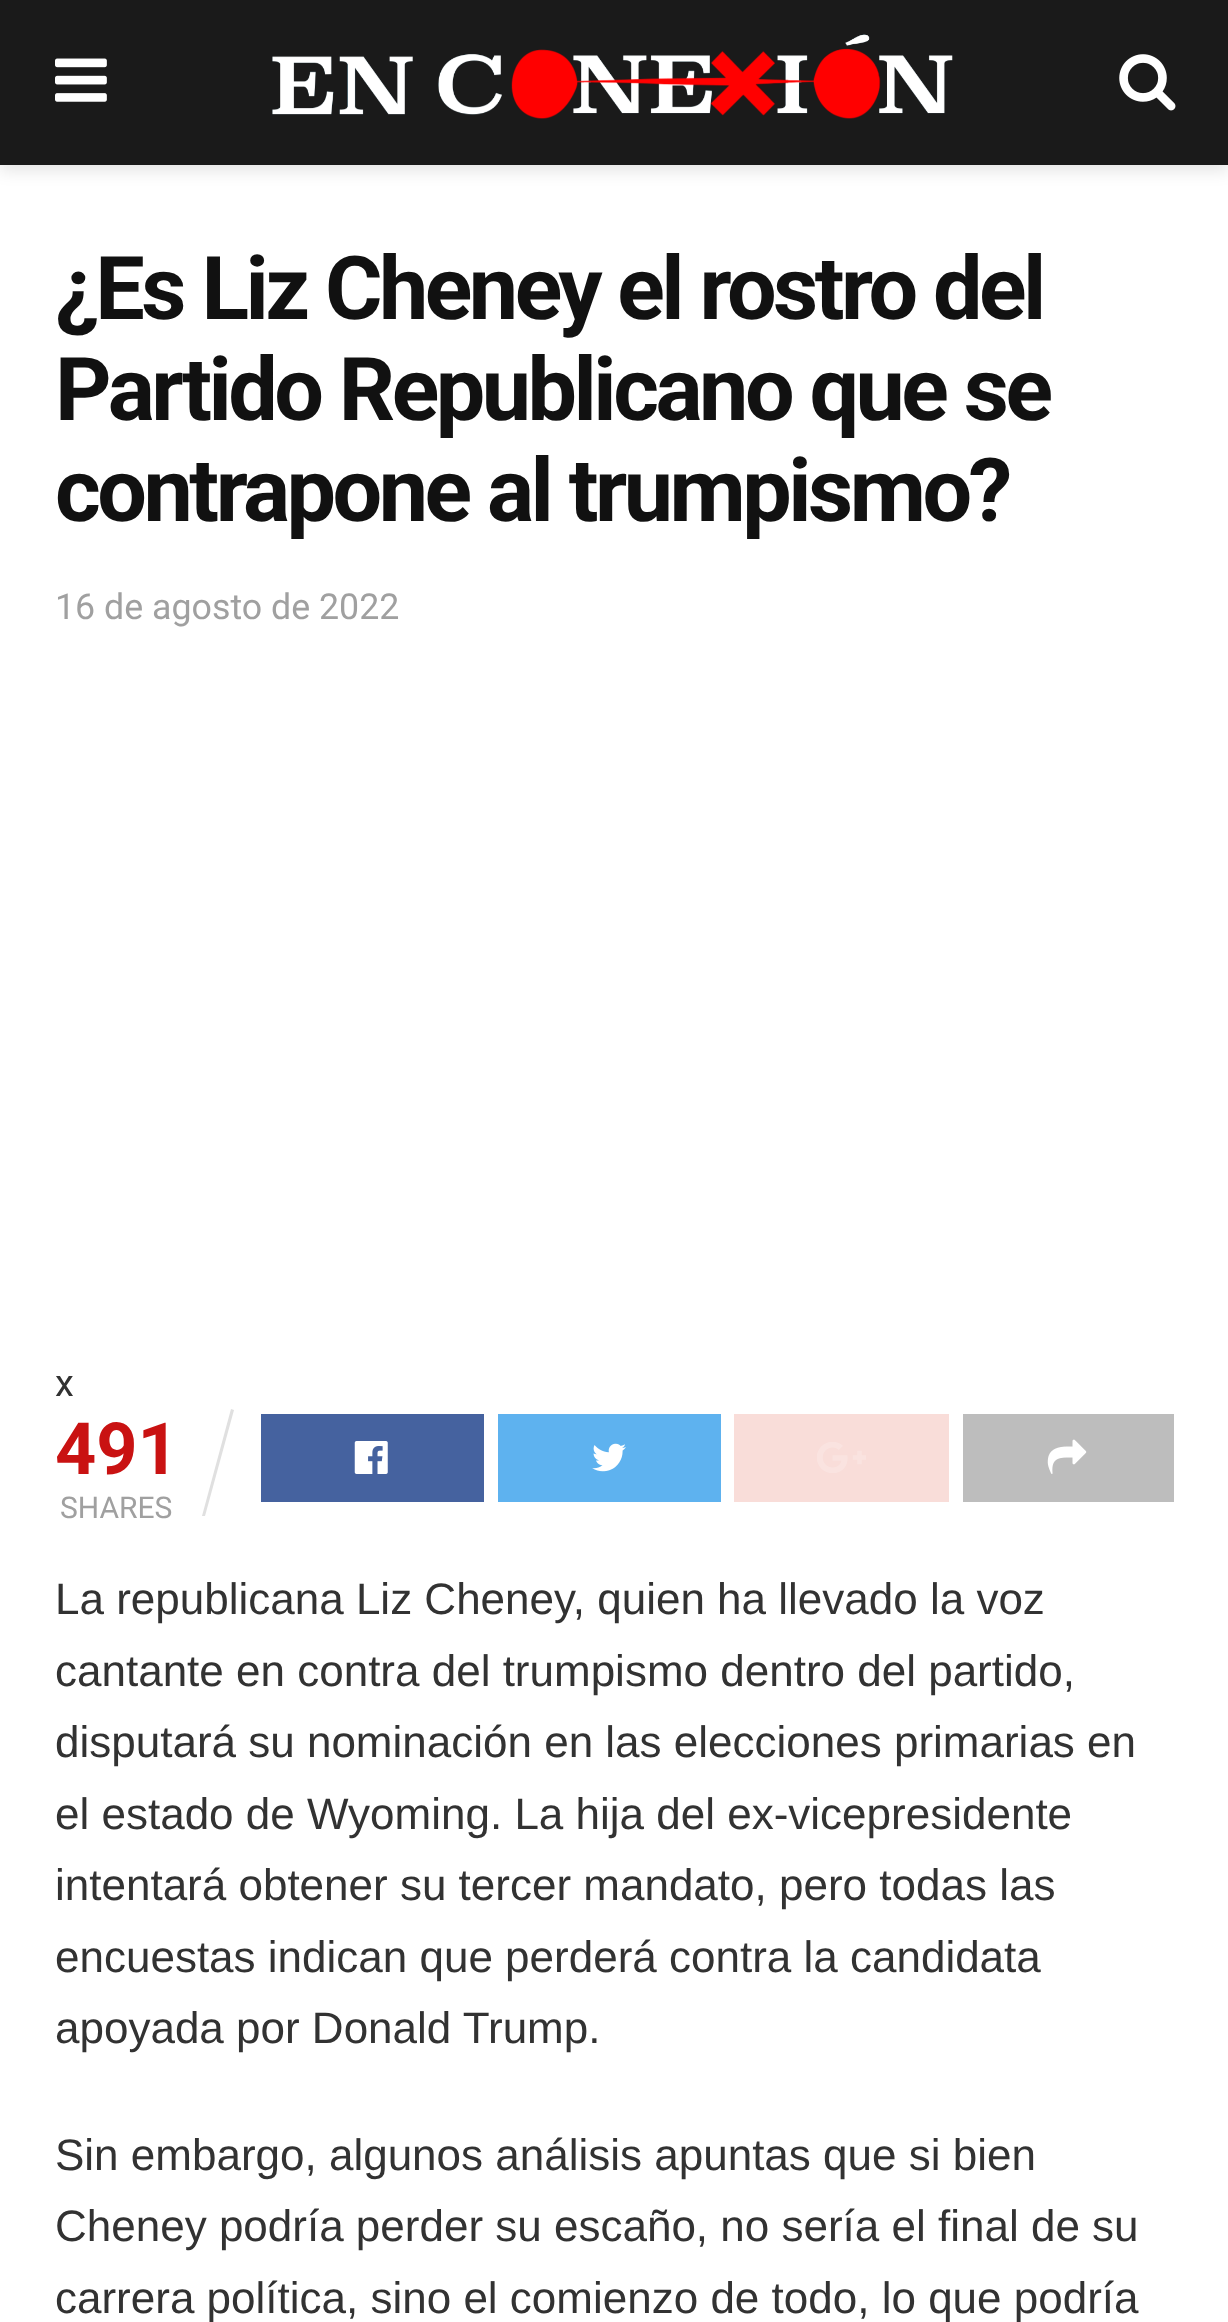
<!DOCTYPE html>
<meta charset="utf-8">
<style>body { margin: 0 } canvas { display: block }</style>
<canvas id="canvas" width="1228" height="2322"></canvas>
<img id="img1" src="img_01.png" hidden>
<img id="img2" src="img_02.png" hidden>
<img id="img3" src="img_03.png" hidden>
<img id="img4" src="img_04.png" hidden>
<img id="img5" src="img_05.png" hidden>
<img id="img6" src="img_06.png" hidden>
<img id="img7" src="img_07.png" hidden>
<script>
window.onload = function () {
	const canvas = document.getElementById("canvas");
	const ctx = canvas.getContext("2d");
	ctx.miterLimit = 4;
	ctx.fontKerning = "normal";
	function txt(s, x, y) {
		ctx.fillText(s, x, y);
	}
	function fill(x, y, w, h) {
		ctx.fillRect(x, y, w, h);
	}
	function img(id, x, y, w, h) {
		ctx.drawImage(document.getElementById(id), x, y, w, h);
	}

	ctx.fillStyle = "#FFFFFF";
	fill(0, 0, 1228, 2322);
	ctx.fillStyle = "rgba(0, 0, 0, 0.1)";
	ctx.filter = "blur(8px)";
	ctx.beginPath();
	ctx.rect(0, 6, 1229, 165);
	ctx.fill();
	ctx.filter = "none";
	ctx.fillStyle = "#1A1A1A";
	fill(0, 0, 1228, 165);
	img("img1", 55, 58, 52, 44);
	img("img2", 272, 34, 681, 85);
	img("img3", 1119, 54, 57, 57);
	ctx.fillStyle = "#E0E0E0";
	ctx.beginPath();
	ctx.moveTo(231, 1409);
	ctx.lineTo(234, 1410);
	ctx.lineTo(205, 1516);
	ctx.lineTo(202, 1516);
	ctx.closePath();
	ctx.fill();
	ctx.fillStyle = "#45629F";
	fill(261, 1414, 223, 88);
	img("img4", 354, 1441, 34, 33);
	ctx.fillStyle = "#5EB2EF";
	fill(498, 1414, 223, 88);
	img("img5", 592, 1443, 34, 29);
	ctx.fillStyle = "#F9DDD9";
	fill(734, 1414, 215, 88);
	img("img6", 817, 1442, 49, 31);
	ctx.fillStyle = "#BDBDBD";
	fill(963, 1414, 211, 88);
	img("img7", 1047, 1439, 40, 35);
	ctx.letterSpacing = "-3.5px";
	ctx.font = "bold 88px Roboto";
	ctx.fillStyle = "#111111";
	txt("¿Es Liz Cheney el rostro del", 55, 319);
	txt("Partido Republicano que se", 55, 420);
	txt("contrapone al trumpismo?", 55, 521);
	ctx.letterSpacing = "0px";
	ctx.font = "35.75px Roboto";
	ctx.fillStyle = "#A0A0A0";
	txt("16 de agosto de 2022", 55, 619);
	ctx.font = "38px Roboto";
	ctx.fillStyle = "#323232";
	txt("x", 55, 1396);
	ctx.font = "bold 72px Roboto";
	ctx.fillStyle = "#C91212";
	txt("491", 55, 1474);
	ctx.font = "30px Roboto";
	ctx.fillStyle = "#A0A0A0";
	txt("SHARES", 60, 1518);
	ctx.font = "44px Liberation Sans";
	ctx.fillStyle = "#323232";
	txt("La republicana Liz Cheney, quien ha llevado la voz", 55, 1614);
	txt("cantante en contra del trumpismo dentro del partido,", 55, 1686);
	txt("disputará su nominación en las elecciones primarias en", 55, 1757);
	txt("el estado de Wyoming. La hija del ex-vicepresidente", 55, 1829);
	txt("intentará obtener su tercer mandato, pero todas las", 55, 1900);
	txt("encuestas indican que perderá contra la candidata", 55, 1972);
	txt("apoyada por Donald Trump.", 55, 2043);
	txt("Sin embargo, algunos análisis apuntas que si bien", 55, 2170);
	txt("Cheney podría perder su escaño, no sería el final de su", 55, 2241);
	txt("carrera política, sino el comienzo de todo, lo que podría", 55, 2313);
};
</script>
